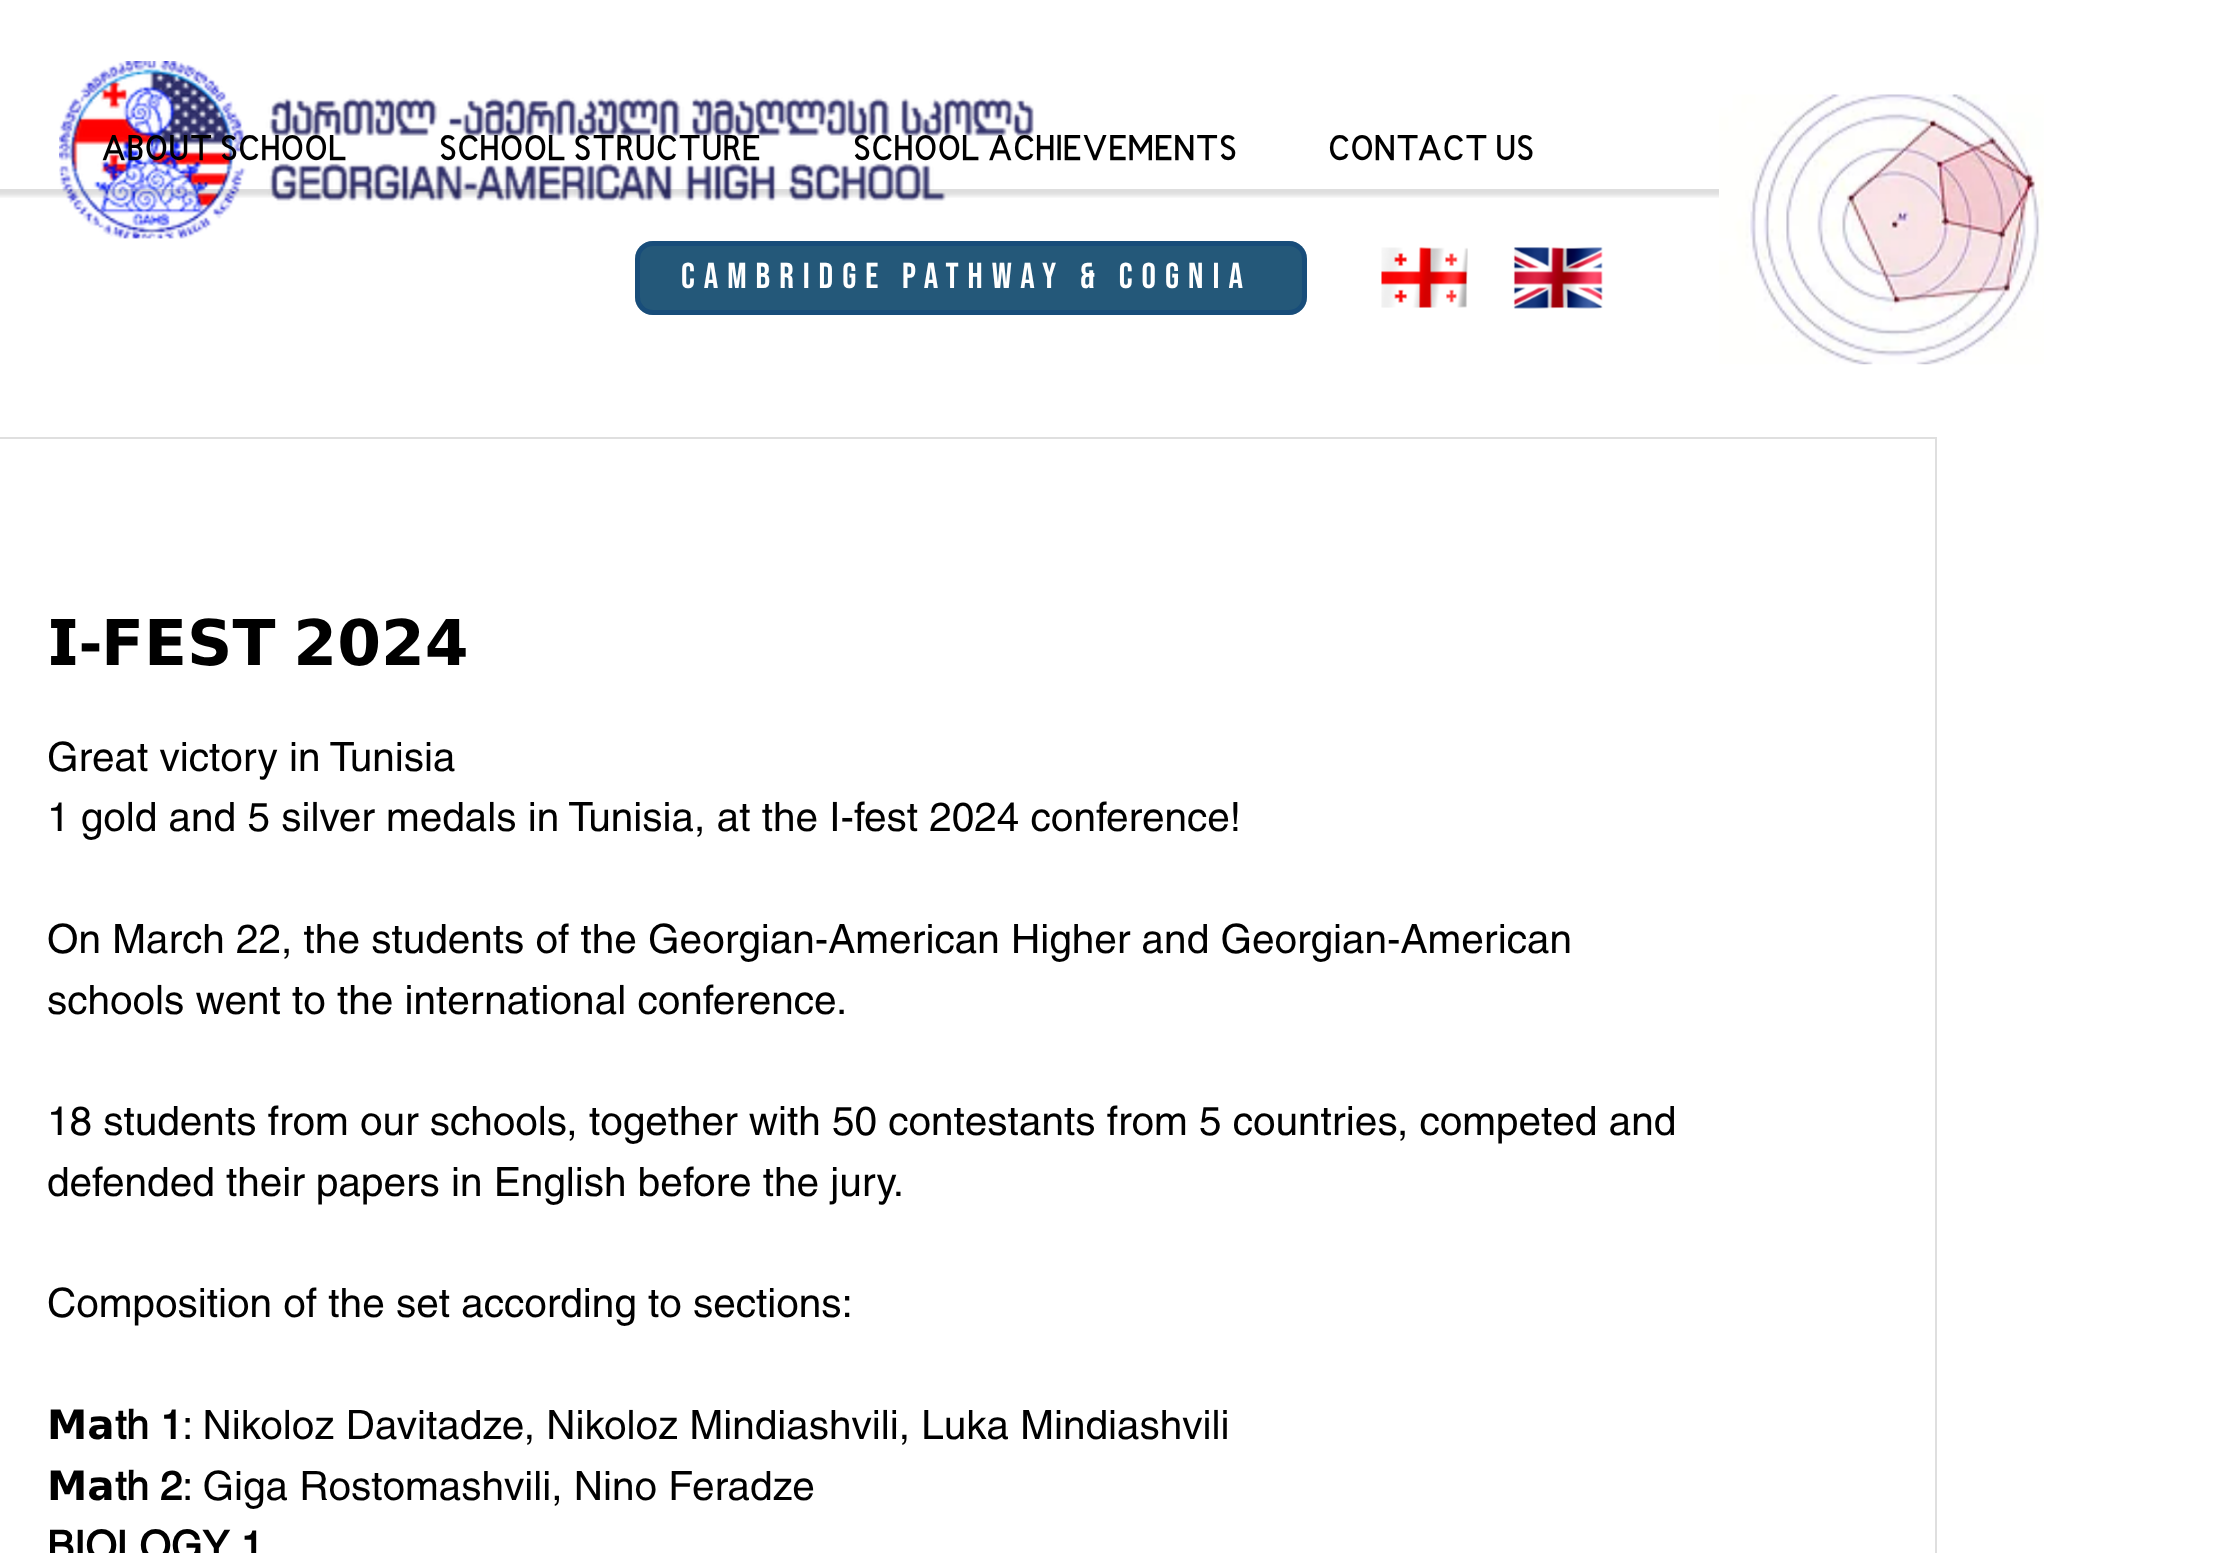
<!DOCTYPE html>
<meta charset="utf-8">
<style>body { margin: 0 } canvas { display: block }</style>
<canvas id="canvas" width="2213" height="1553"></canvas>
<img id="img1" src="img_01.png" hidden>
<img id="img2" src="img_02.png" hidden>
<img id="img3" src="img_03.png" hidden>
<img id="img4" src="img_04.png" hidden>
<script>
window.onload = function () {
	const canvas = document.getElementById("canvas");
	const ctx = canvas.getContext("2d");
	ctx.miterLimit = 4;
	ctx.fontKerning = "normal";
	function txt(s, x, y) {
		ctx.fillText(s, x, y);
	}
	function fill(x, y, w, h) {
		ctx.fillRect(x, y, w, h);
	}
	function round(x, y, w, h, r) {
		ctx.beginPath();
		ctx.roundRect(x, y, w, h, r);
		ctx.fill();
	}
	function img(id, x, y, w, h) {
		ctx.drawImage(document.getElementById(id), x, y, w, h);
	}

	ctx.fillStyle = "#FFFFFF";
	fill(0, 0, 2213, 1553);
	img("img1", 59, 61, 975, 178);
	ctx.save();
	ctx.beginPath();
	ctx.rect(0, 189, 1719, 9);
	ctx.clip();
	ctx.fillStyle = "rgba(0, 0, 0, 0.13)";
	ctx.filter = "blur(2px)";
	ctx.beginPath();
	ctx.rect(-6, 119, 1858, 77);
	ctx.fill();
	ctx.filter = "none";
	ctx.restore();
	img("img2", 1719, 94, 325, 271);
	ctx.fillStyle = "#245879";
	round(635, 241, 672, 74, 18);
	ctx.beginPath();
	ctx.roundRect(637.5, 243.5, 667, 69, 15.5);
	ctx.strokeStyle = "rgba(9, 63, 124, 0.43)";
	ctx.lineWidth = 5;
	ctx.stroke();
	img("img3", 1381, 247, 87, 61);
	img("img4", 1513, 247, 90, 62);
	ctx.strokeStyle = "#DFDFDF";
	ctx.lineWidth = 2;
	ctx.strokeRect(-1, 438, 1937, 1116);
	ctx.font = "bold 36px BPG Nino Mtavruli";
	ctx.fillStyle = "#000000";
	txt("ABOUT SCHOOL", 101, 162);
	txt("SCHOOL STRUCTURE", 439, 162);
	txt("SCHOOL ACHIEVEMENTS", 853, 162);
	txt("CONTACT US", 1328, 162);
	ctx.letterSpacing = "9px";
	ctx.font = "36px Bebas Neue";
	ctx.fillStyle = "#FFFFFF";
	txt("Cambridge Pathway & Cognia", 681, 288);
	ctx.letterSpacing = "0px";
	ctx.font = "bold 63px DejaVu Sans";
	ctx.fillStyle = "#000000";
	txt("𝗜", 47, 665);
	ctx.font = "bold 63px helvetica";
	txt("-", 80, 665);
	ctx.wordSpacing = "-4px";
	ctx.font = "bold 63px DejaVu Sans";
	txt("𝗙𝗘𝗦𝗧 𝟮𝟬𝟮𝟰", 101, 665);
	ctx.wordSpacing = "0px";
	ctx.font = "40.5px helvetica";
	txt("Great victory in Tunisia", 47, 771);
	txt("1 gold and 5 silver medals in Tunisia, at the I-fest 2024 conference!", 47, 831);
	txt("On March 22, the students of the Georgian-American Higher and Georgian-American", 47, 953);
	txt("schools went to the international conference.", 47, 1014);
	txt("18 students from our schools, together with 50 contestants from 5 countries, competed and", 47, 1135);
	txt("defended their papers in English before the jury.", 47, 1196);
	txt("Composition of the set according to sections:", 47, 1317);
	ctx.font = "bold 40.5px DejaVu Sans";
	txt("𝗠𝗮", 47, 1439);
	ctx.font = "bold 40.5px 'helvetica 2'";
	txt("th 1", 115, 1439);
	ctx.font = "40.5px helvetica";
	txt(": Nikoloz Davitadze, Nikoloz Mindiashvili, Luka Mindiashvili", 182, 1439);
	ctx.font = "bold 40.5px DejaVu Sans";
	txt("𝗠𝗮", 47, 1500);
	ctx.font = "bold 40.5px 'helvetica 2'";
	txt("th 2", 115, 1500);
	ctx.font = "40.5px helvetica";
	txt(": Giga Rostomashvili, Nino Feradze", 182, 1500);
	ctx.font = "bold 40.5px 'helvetica 2'";
	txt("BIOLOGY 1", 47, 1560);
};
</script>
